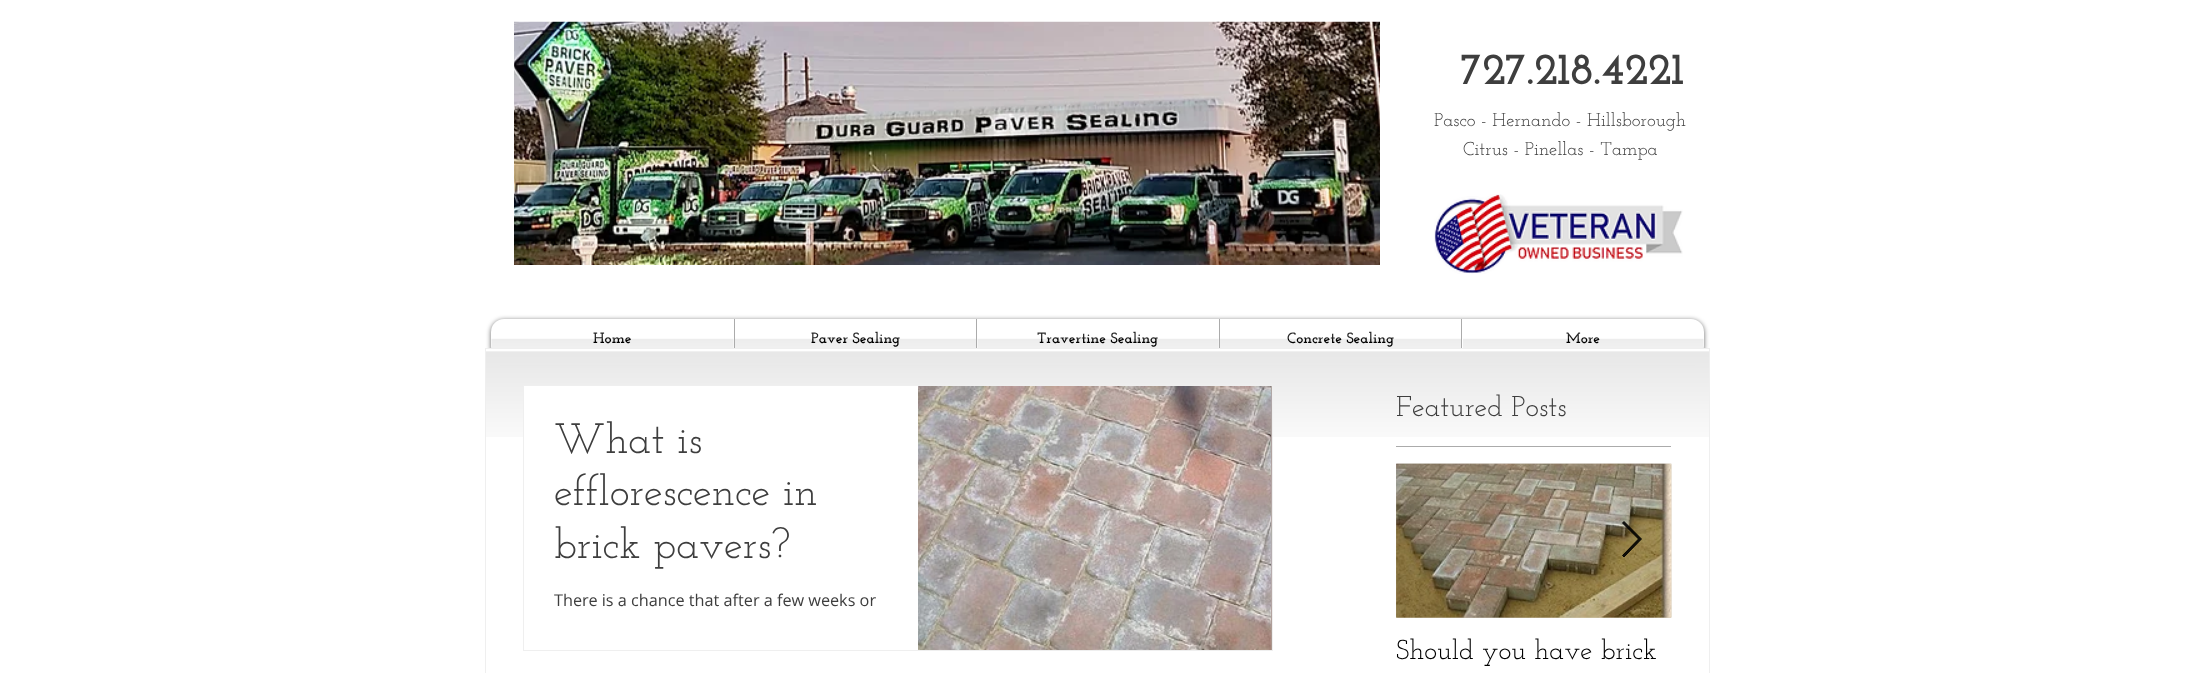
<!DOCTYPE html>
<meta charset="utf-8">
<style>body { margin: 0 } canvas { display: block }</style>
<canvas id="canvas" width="2194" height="673"></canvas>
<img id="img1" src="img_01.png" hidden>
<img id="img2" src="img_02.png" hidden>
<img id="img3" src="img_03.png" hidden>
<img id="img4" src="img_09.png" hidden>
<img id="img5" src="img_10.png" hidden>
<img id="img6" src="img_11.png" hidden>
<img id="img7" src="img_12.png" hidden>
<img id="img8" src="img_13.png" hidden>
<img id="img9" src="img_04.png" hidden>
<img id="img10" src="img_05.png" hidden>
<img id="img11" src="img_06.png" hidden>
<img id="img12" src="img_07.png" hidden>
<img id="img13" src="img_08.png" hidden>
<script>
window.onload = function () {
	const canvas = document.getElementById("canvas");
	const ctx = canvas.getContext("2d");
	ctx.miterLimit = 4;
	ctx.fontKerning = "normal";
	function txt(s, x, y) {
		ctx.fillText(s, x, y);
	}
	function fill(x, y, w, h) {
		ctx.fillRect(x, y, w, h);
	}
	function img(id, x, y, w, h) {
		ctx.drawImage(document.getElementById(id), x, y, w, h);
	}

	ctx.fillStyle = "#FFFFFF";
	fill(0, 0, 2194, 673);
	img("img1", 514, 21, 866, 244);
	img("img2", 1434, 194, 249, 80);
	ctx.fillStyle = "rgba(0, 0, 0, 0.6)";
	ctx.filter = "blur(2.5px)";
	ctx.beginPath();
	ctx.roundRect(491, 320, 1213, 40, 13);
	ctx.fill();
	ctx.filter = "none";
	img("img3", 491, 346, 1213, 2);
	ctx.fillStyle = "#FFFFFF";
	ctx.beginPath();
	ctx.roundRect(491, 319, 243, 40, [13, 0, 0, 13]);
	ctx.fill();
	fill(735, 319, 241, 29);
	ctx.fillStyle = "#ABABAB";
	fill(734, 319, 1, 29);
	ctx.fillStyle = "#FFFFFF";
	fill(977, 319, 242, 29);
	ctx.fillStyle = "#ABABAB";
	fill(976, 319, 1, 29);
	ctx.fillStyle = "#FFFFFF";
	fill(1220, 319, 241, 29);
	ctx.fillStyle = "#ABABAB";
	fill(1219, 319, 1, 29);
	ctx.fillStyle = "#FFFFFF";
	ctx.beginPath();
	ctx.roundRect(1461, 319, 243, 40, [0, 13, 13, 0]);
	ctx.fill();
	ctx.fillStyle = "#ABABAB";
	fill(1461, 319, 1, 29);
	ctx.fillStyle = "#FFFFFF";
	fill(486, 349, 1223, 16);
	img("img4", 486, 351, 1223, 86);
	ctx.strokeStyle = "#EFEFEF";
	ctx.strokeRect(485.5, 348.5, 1224, 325);
	fill(523, 386, 750, 51);
	ctx.strokeRect(523.5, 385.5, 749, 265);
	img("img5", 918, 386, 353, 264);
	img("img6", 1271, 386, 1, 264);
	ctx.fillStyle = "#ABABAB";
	fill(1396, 446, 275, 1);
	img("img7", 1396, 463, 276, 155);
	img("img8", 1396, 463, 276, 155);
	ctx.fillStyle = "rgba(0, 0, 0, 0.9)";
	ctx.beginPath();
	ctx.moveTo(1622.5, 523);
	ctx.lineTo(1624, 521.5);
	ctx.lineTo(1641.5, 539);
	ctx.lineTo(1624, 557);
	ctx.lineTo(1622.5, 555.5);
	ctx.lineTo(1638.5, 539);
	ctx.closePath();
	ctx.fill();
	ctx.strokeStyle = "rgba(0, 0, 0, 0.9)";
	ctx.stroke();
	ctx.font = "bold 45px Josefin Slab";
	ctx.fillStyle = "#3E3E3E";
	txt("727.218.4221", 1461, 84);
	ctx.font = "18.75px Josefin Slab";
	txt("Pasco - Hernando - Hillsborough", 1434, 126);
	txt("Citrus - Pinellas - Tampa", 1463, 155);
	ctx.font = "bold 15px Josefin Slab";
	ctx.fillStyle = "#000000";
	txt("Home", 593, 343);
	img("img9", 491, 332, 243, 16);
	txt("Paver Sealing", 811, 343);
	img("img10", 735, 331, 241, 17);
	txt("Travertine Sealing", 1037, 343);
	img("img11", 977, 331, 242, 17);
	txt("Concrete Sealing", 1287, 343);
	img("img12", 1220, 331, 241, 17);
	txt("More", 1566, 343);
	img("img13", 1463, 332, 241, 16);
	ctx.font = "28.75px Josefin Slab";
	ctx.fillStyle = "#3E3E3E";
	txt("Featured Posts", 1396, 416);
	ctx.font = "42.5px Josefin Slab";
	txt("What is", 554, 453);
	txt("efflorescence in", 554, 505);
	txt("brick pavers?", 554, 558);
	ctx.font = "16.25px Open Sans";
	txt("There is a chance that after a few weeks or", 554, 606);
	ctx.font = "27.5px Josefin Slab";
	ctx.fillStyle = "#000000";
	txt("Should you have brick", 1396, 659);
};
</script>
